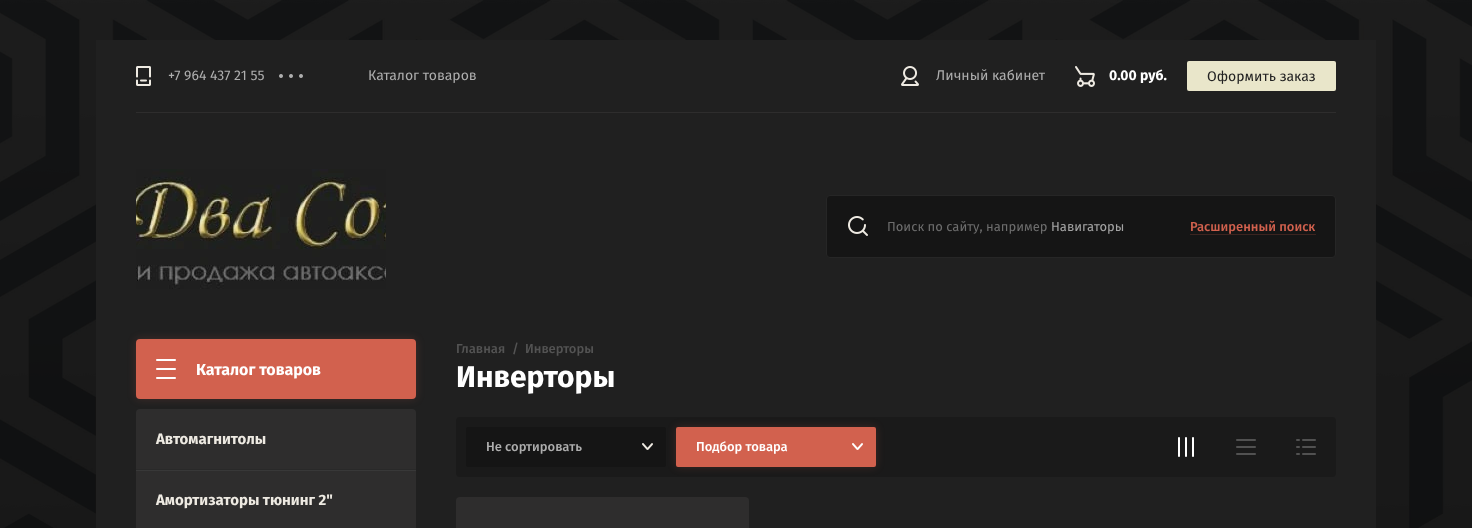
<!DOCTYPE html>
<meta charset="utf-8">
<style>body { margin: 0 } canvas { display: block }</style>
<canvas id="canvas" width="1472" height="528"></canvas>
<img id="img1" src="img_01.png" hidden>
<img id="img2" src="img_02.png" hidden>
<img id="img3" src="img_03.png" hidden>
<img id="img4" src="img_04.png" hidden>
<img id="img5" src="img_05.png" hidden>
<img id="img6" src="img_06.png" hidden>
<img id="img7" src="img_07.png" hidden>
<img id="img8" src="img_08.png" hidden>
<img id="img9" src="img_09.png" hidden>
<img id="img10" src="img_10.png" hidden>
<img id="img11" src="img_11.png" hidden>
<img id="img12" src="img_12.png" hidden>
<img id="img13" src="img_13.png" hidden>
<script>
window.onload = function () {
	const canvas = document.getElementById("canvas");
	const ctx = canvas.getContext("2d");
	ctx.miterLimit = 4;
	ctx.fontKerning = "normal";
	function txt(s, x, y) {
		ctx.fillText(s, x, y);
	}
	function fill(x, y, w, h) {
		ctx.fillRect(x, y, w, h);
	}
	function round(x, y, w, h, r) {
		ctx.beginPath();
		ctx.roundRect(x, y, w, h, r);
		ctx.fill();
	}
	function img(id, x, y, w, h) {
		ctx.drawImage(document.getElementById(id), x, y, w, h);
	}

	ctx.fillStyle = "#FFFFFF";
	fill(0, 0, 1472, 528);
	img("img1", 0, 0, 1472, 528);
	ctx.fillStyle = "#202020";
	fill(96, 40, 1280, 488);
	ctx.fillStyle = "#2E2D2D";
	fill(136, 112, 1200, 1);
	img("img2", 136, 66, 15, 20);
	img("img3", 279, 74, 24, 4);
	img("img4", 901, 66, 18, 20);
	img("img5", 1075, 66, 20, 21);
	ctx.fillStyle = "#E9E6CA";
	round(1187, 61, 149, 30, 2);
	img("img6", 136, 169, 250, 120);
	ctx.fillStyle = "#151515";
	ctx.beginPath();
	ctx.roundRect(826.5, 195.5, 509, 62, 3.5);
	ctx.fill();
	ctx.strokeStyle = "#262626";
	ctx.stroke();
	img("img7", 848, 216, 20, 20);
	ctx.fillStyle = "#3B2420";
	fill(1190, 234, 126, 1);
	ctx.fillStyle = "rgba(210, 97, 78, 0.2)";
	ctx.filter = "blur(4px)";
	ctx.beginPath();
	ctx.roundRect(136, 339, 280, 60, 4);
	ctx.fill();
	ctx.filter = "none";
	ctx.fillStyle = "#D2614E";
	round(136, 339, 280, 60, 4);
	img("img8", 156, 359, 20, 20);
	ctx.fillStyle = "#2E2D2D";
	round(136, 409, 280, 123, 4);
	ctx.fillStyle = "#383838";
	fill(136, 470, 280, 1);
	ctx.fillStyle = "#292929";
	fill(136, 469, 280, 1);
	ctx.fillStyle = "#1A1A1A";
	round(456, 417, 880, 60, 4);
	ctx.fillStyle = "rgba(210, 97, 78, 0.2)";
	ctx.filter = "blur(4px)";
	ctx.beginPath();
	ctx.roundRect(676, 427, 200, 40, 2);
	ctx.fill();
	ctx.filter = "none";
	ctx.fillStyle = "#151515";
	round(466, 427, 200, 40, 2);
	img("img9", 642, 443, 11, 7);
	ctx.fillStyle = "#D2614E";
	round(676, 427, 200, 40, 2);
	img("img10", 852, 443, 11, 7);
	img("img11", 1178, 437, 16, 20);
	img("img12", 1236, 439, 20, 16);
	img("img13", 1296, 439, 20, 16);
	ctx.fillStyle = "#2E2D2D";
	round(456, 497, 293, 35, 4);
	ctx.font = "14px Fira Sans";
	ctx.fillStyle = "#AEAEAE";
	txt("+7 964 437 21 55", 168, 80);
	txt("Каталог товаров", 368, 80);
	txt("Личный кабинет", 936, 80);
	ctx.font = "bold 14px Fira Sans";
	ctx.fillStyle = "#FFFFFF";
	txt("0.00 руб.", 1109, 80);
	ctx.font = "14px Fira Sans";
	ctx.fillStyle = "#222222";
	txt("Оформить заказ", 1207, 81);
	ctx.font = "13px Fira Sans";
	ctx.fillStyle = "#6D6D6D";
	txt("Поиск по сайту, например", 887, 231);
	ctx.fillStyle = "#A4A4A4";
	txt("Навигаторы", 1051, 231);
	ctx.font = "500 13px Fira Sans";
	ctx.fillStyle = "#D2614E";
	txt("Расширенный поиск", 1190, 231);
	ctx.font = "bold 16px Fira Sans";
	ctx.fillStyle = "#FFFFFF";
	txt("Каталог товаров", 196, 375);
	ctx.font = "bold 15px Fira Sans";
	ctx.fillStyle = "#EEEAE2";
	txt("Автомагнитолы", 156, 444);
	txt("Амортизаторы тюнинг 2\"", 156, 505);
	ctx.font = "500 13px Fira Sans";
	ctx.fillStyle = "#535353";
	txt("Главная", 456, 353);
	txt("/", 512, 353);
	txt("Инверторы", 525, 353);
	ctx.font = "bold 30px Fira Sans";
	ctx.fillStyle = "#FFFFFF";
	txt("Инверторы", 456, 387);
	ctx.font = "500 13px Fira Sans";
	ctx.fillStyle = "#AEAEAE";
	txt("Не сортировать", 486, 451);
	ctx.fillStyle = "#FFFFFF";
	txt("Подбор товара", 696, 451);
};
</script>
